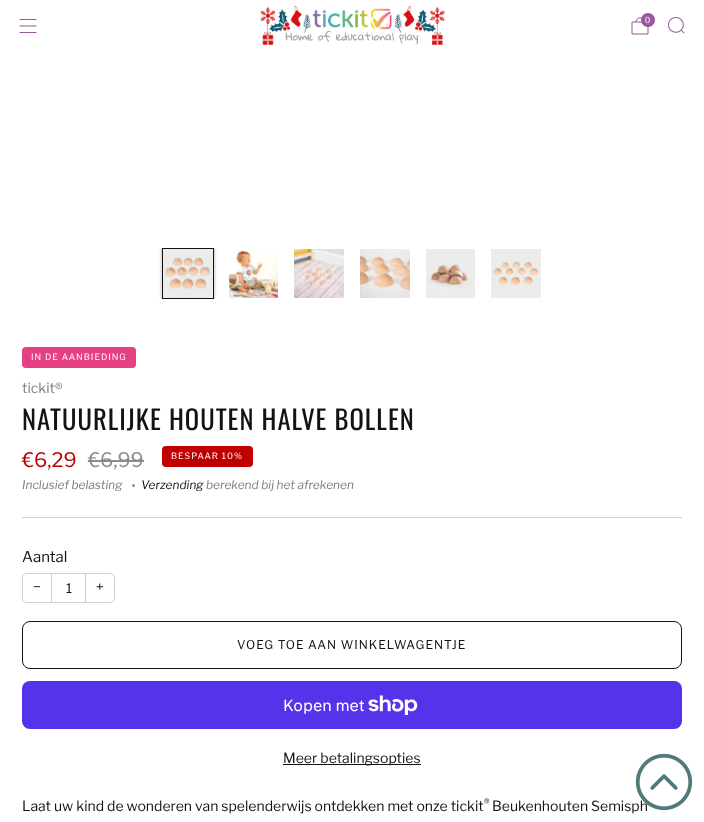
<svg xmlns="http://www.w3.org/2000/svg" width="704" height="822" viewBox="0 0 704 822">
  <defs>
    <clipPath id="clip1"><rect x="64" y="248" width="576" height="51"/></clipPath>
    <filter id="blur1" x="-50%" y="-200%" width="200%" height="500%"><feGaussianBlur stdDeviation="1.5"/></filter>
  </defs>
  <rect width="100%" height="100%" fill="#ffffff"/>
  <path d="M19.5 19.5H36.5M19.5 26H36.5M19.5 32.5H36.5" fill="none" stroke="#98579e"/>
  <image x="260" y="6" width="185" height="40" href="img1.png"/>
  <path d="M644 22C644 16.5 636 16.5 636 22M632 22H648V34H632Z" fill="none" stroke="#98579e"/>
  <circle cx="648" cy="20" r="7" fill="#98579e"/>
  <text x="645" y="23" font-family="Liberation Sans" font-size="9" fill="#ffffff">0</text>
  <image x="668" y="17" width="17" height="17" href="img2.png"/>
  <g clip-path="url(#clip1)">
    <rect x="161" y="247" width="54" height="53" fill="#131313" fill-opacity="0.2" filter="url(#blur1)"/>
  </g>
  <rect x="162.5" y="248.5" width="51" height="50" fill="none" stroke="#131313"/>
  <image x="163" y="249" width="50" height="49" href="img3.png"/>
  <image x="229" y="249" width="49" height="49" href="img4.png"/>
  <image x="294" y="249" width="50" height="49" href="img5.png"/>
  <image x="360" y="249" width="50" height="49" href="img6.png"/>
  <image x="426" y="249" width="49" height="49" href="img7.png"/>
  <image x="491" y="249" width="50" height="49" href="img8.png"/>
  <rect x="22" y="347" width="114" height="21" rx="4" fill="#e73f84"/>
  <text x="31" y="360" font-family="Libre Franklin" font-size="8.75" letter-spacing="1" fill="#ffffff">IN DE AANBIEDING</text>
  <text x="22" y="393" font-family="Libre Franklin" font-size="14" fill="#7d7d7d">tickit®</text>
  <text x="22" y="430" font-family="Oswald" font-size="26.6" letter-spacing="1" fill="#131313">NATUURLIJKE HOUTEN HALVE BOLLEN</text>
  <text x="22" y="467" font-family="Libre Franklin" font-size="20" fill="#c00000">€6,29</text>
  <text x="88" y="467" font-family="Libre Franklin" font-size="20" fill="#8b8b8b">€6,99</text>
  <rect x="88" y="460" width="56" height="2" fill="#8b8b8b"/>
  <rect x="162" y="446" width="91" height="21" rx="4" fill="#c00000"/>
  <text x="171" y="459" font-family="Libre Franklin" font-size="8.75" letter-spacing="1" fill="#ffffff">BESPAAR 10%</text>
  <text x="22" y="489" font-family="Libre Franklin" font-size="11.9" font-style="italic" fill="#7d7d7d">Inclusief belasting</text>
  <circle cx="133.5" cy="485.5" r="1.5" fill="#8b8b8b"/>
  <text x="141" y="489" font-family="Libre Franklin" font-size="11.9" font-style="italic" fill="#131313">Verzending</text>
  <text x="206" y="489" font-family="Libre Franklin" font-size="11.9" font-style="italic" fill="#7d7d7d">berekend bij het afrekenen</text>
  <rect x="22" y="517" width="660" height="1" fill="#d0d0d0"/>
  <text x="22" y="562" font-family="Libre Franklin" font-size="15" fill="#131313">Aantal</text>
  <rect x="22.5" y="573.5" width="92" height="29" rx="4.5" fill="none" stroke="#d0d0d0"/>
  <text x="33" y="591" font-family="Liberation Sans" font-size="13" fill="#131313">−</text>
  <rect x="85" y="574" width="1" height="28" fill="#d0d0d0"/>
  <rect x="51" y="574" width="1" height="28" fill="#d0d0d0"/>
  <text x="66" y="593" font-family="Libre Franklin" font-size="13" fill="#131313">1</text>
  <text x="96" y="591" font-family="Liberation Sans" font-size="13" fill="#131313">+</text>
  <rect x="22.5" y="621.5" width="659" height="47" rx="7.5" fill="none" stroke="#131313"/>
  <text x="237" y="649" font-family="Libre Franklin" font-size="12" letter-spacing="1" fill="#131313">VOEG TOE AAN WINKELWAGENTJE</text>
  <rect x="22" y="681" width="660" height="48" rx="8" fill="#5433eb"/>
  <text x="283" y="711" font-family="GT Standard" font-size="16" fill="#ffffff">Kopen met</text>
  <image x="368" y="695" width="50" height="20" href="img9.png"/>
  <rect x="283" y="764" width="138" height="1" fill="#131313"/>
  <text x="283" y="763" font-family="Libre Franklin" font-size="14" fill="#131313">Meer betalingsopties</text>
  <text x="22" y="811" font-family="Libre Franklin" font-size="14" fill="#131313">Laat uw kind de wonderen van spelenderwijs ontdekken met onze tickit</text>
  <text x="484" y="806" font-family="Libre Franklin" font-size="10" fill="#131313">®</text>
  <text x="492" y="811" font-family="Libre Franklin" font-size="14" fill="#131313">Beukenhouten Semisph</text>
  <image x="635" y="753" width="58" height="58" href="img10.png"/>
</svg>
